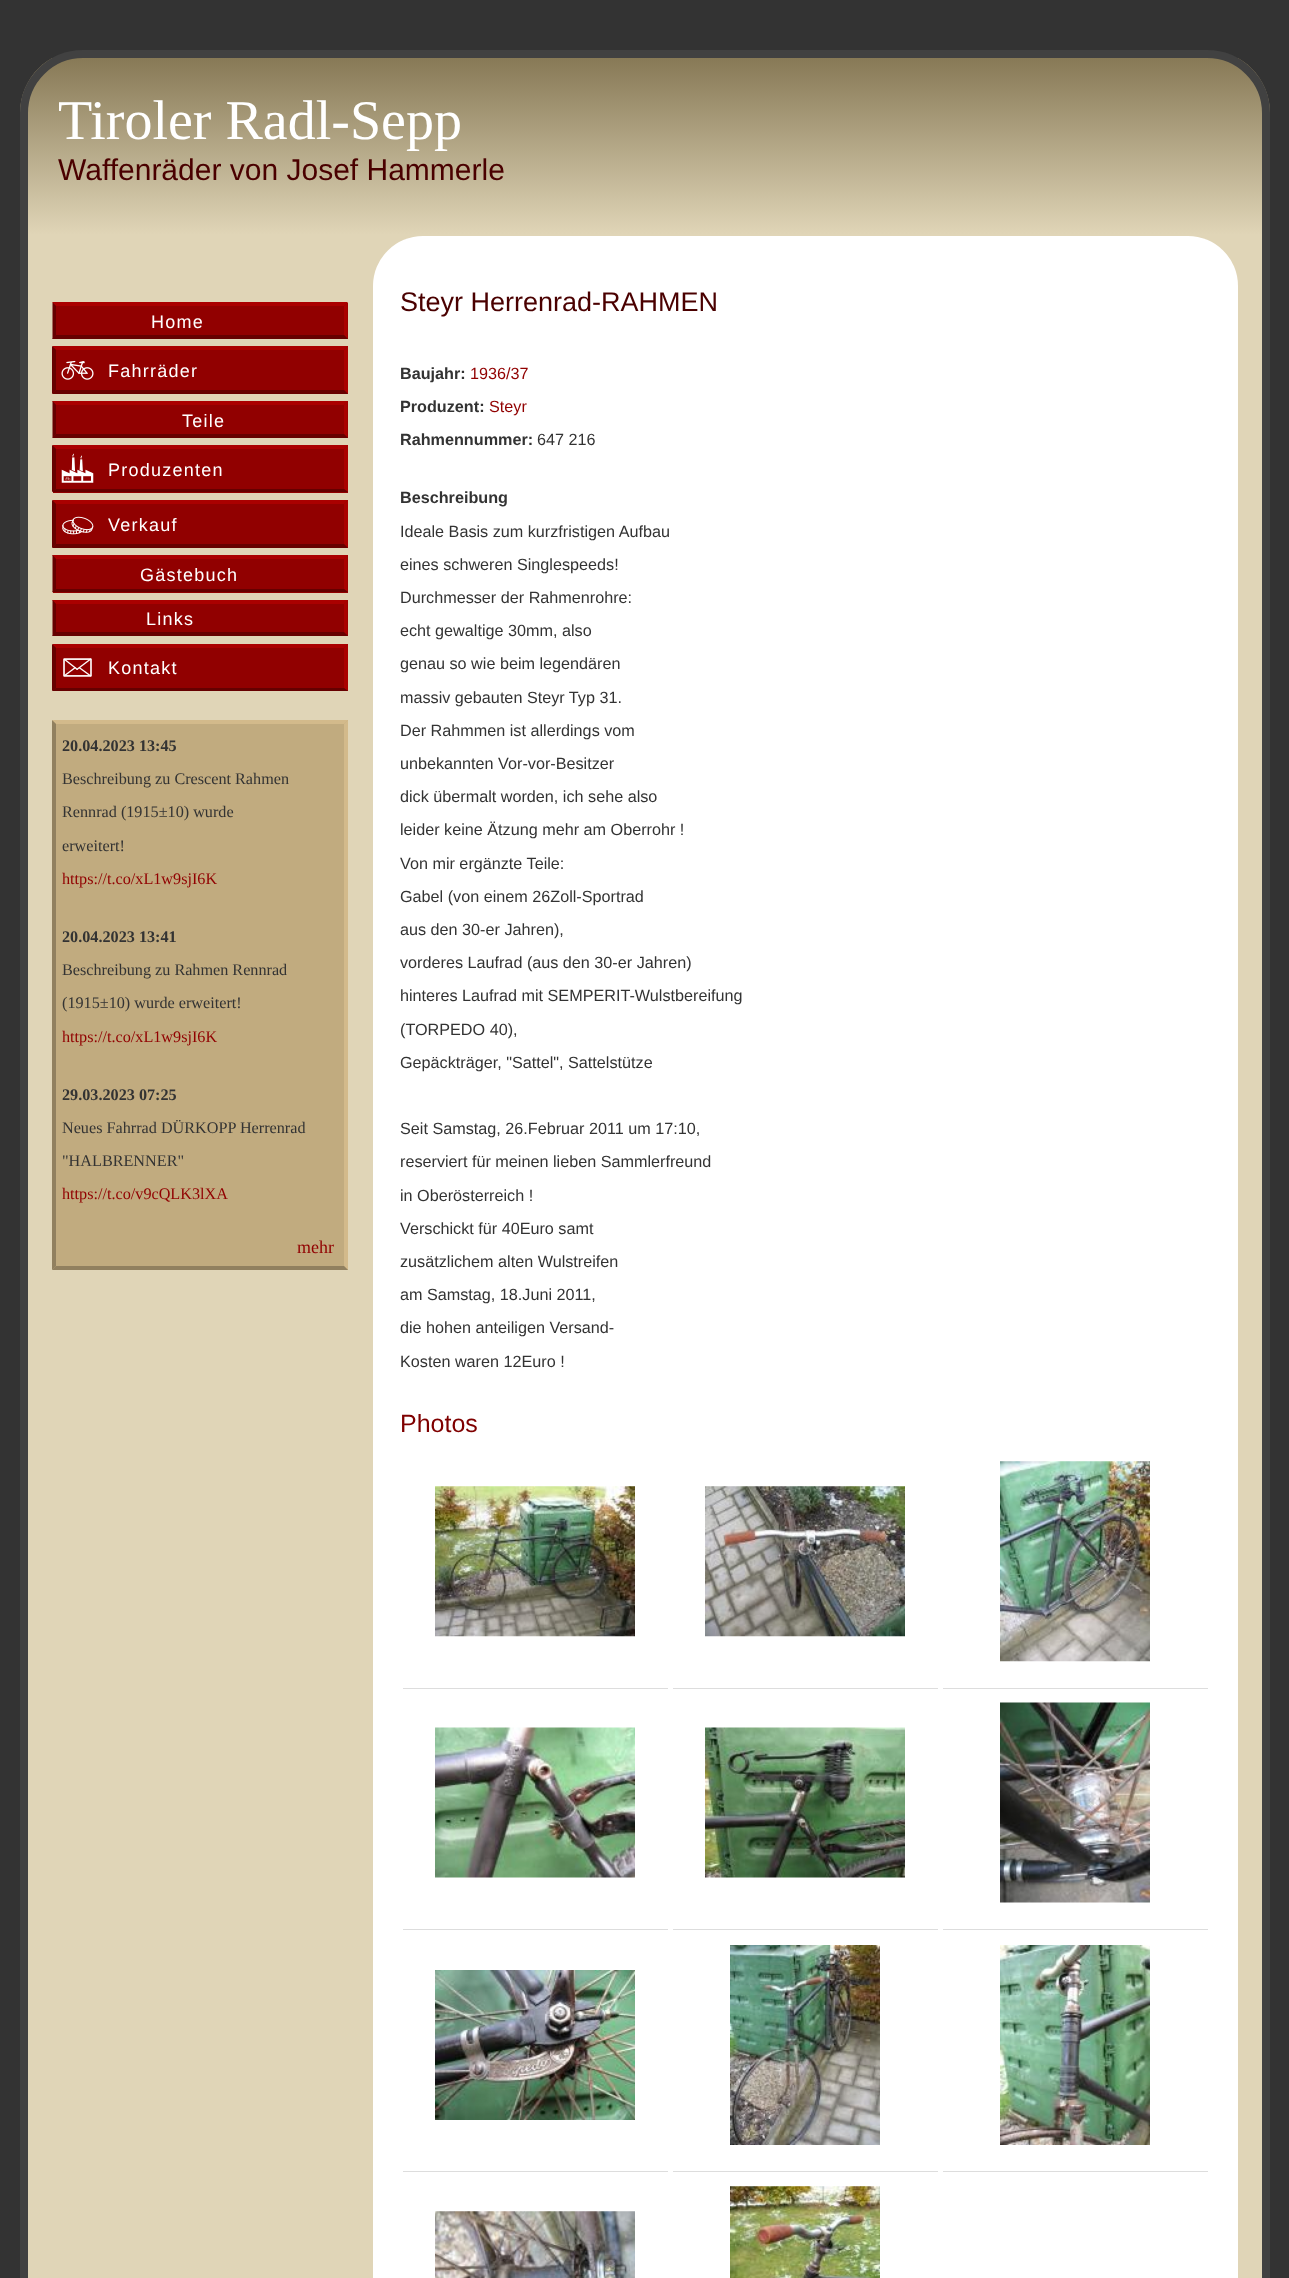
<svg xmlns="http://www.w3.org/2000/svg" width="1289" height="2278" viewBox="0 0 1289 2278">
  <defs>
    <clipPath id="clip1"><path d="M83 50H1207C1242 50 1270 78 1270 113V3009H20V113C20 78 48 50 83 50Z"/></clipPath>
    <linearGradient id="g1" gradientUnits="userSpaceOnUse" x1="645" y1="58" x2="645" y2="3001"><stop offset="0" stop-color="#877956"/><stop offset="0.06" stop-color="#e0d5b7"/><stop offset="1" stop-color="#e0d5b7"/></linearGradient>
  </defs>
  <rect width="100%" height="100%" fill="#333333"/>
  <g clip-path="url(#clip1)">
    <rect x="20" y="58" width="1250" height="2220" fill="url(#g1)"/>
  </g>
  <path d="M83 54H1207C1239.5 54 1266 80.5 1266 113V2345H24V113C24 80.5 50.5 54 83 54Z" fill="none" stroke="#414141" stroke-width="8"/>
  <text x="58" y="139" font-family="Liberation Serif" font-size="56" fill="#ffffff">Tiroler Radl-Sepp</text>
  <text x="58" y="180" font-family="Liberation Sans" font-size="30" fill="#4a0000">Waffenräder von Josef Hammerle</text>
  <rect x="53" y="303" width="295" height="36" fill="#910000"/>
  <path d="M52 302H348L344 306H56Z" fill="#aa0000"/>
  <path d="M347.5 302.5V339L344 335V306Z" fill="#aa0000"/>
  <path d="M348 339H52L56 335H344Z" fill="#660000"/>
  <path d="M52.5 339V302.5L56 306V335Z" fill="#660000"/>
  <text x="151" y="328" font-family="Liberation Sans" font-size="18" letter-spacing="1.25" fill="#ffffff">Home</text>
  <rect x="53" y="346" width="295" height="48" fill="#910000"/>
  <path d="M52 346H348L344 350H56Z" fill="#aa0000"/>
  <path d="M348 346V394L344 390V350Z" fill="#aa0000"/>
  <path d="M348 394H52L56 390H344Z" fill="#660000"/>
  <path d="M52 394V346L56 350V390Z" fill="#660000"/>
  <image x="61" y="360" width="33" height="20" href="img1.png"/>
  <text x="108" y="377" font-family="Liberation Sans" font-size="18" letter-spacing="1.25" fill="#ffffff">Fahrräder</text>
  <rect x="53" y="401" width="295" height="37" fill="#910000"/>
  <path d="M52 401H348L344 405H56Z" fill="#aa0000"/>
  <path d="M347.5 401V437.5L344 434V405Z" fill="#aa0000"/>
  <path d="M348 438H52L56 434H344Z" fill="#660000"/>
  <path d="M52.5 437.5V401L56 405V434Z" fill="#660000"/>
  <text x="182" y="427" font-family="Liberation Sans" font-size="18" letter-spacing="1.25" fill="#ffffff">Teile</text>
  <rect x="53" y="445" width="295" height="48" fill="#910000"/>
  <path d="M52 445H348L344 449H56Z" fill="#aa0000"/>
  <path d="M348 445V492L344 489V449Z" fill="#aa0000"/>
  <path d="M348 492H52L56 489H344Z" fill="#660000"/>
  <path d="M52 492V445L56 449V489Z" fill="#660000"/>
  <image x="61" y="453" width="33" height="30" href="img2.png"/>
  <text x="108" y="476" font-family="Liberation Sans" font-size="18" letter-spacing="1.25" fill="#ffffff">Produzenten</text>
  <rect x="53" y="500" width="295" height="48" fill="#910000"/>
  <path d="M52 500H348L344 504H56Z" fill="#aa0000"/>
  <path d="M348 500V548L344 544V504Z" fill="#aa0000"/>
  <path d="M348 548H52L56 544H344Z" fill="#660000"/>
  <path d="M52 548V500L56 504V544Z" fill="#660000"/>
  <image x="62" y="516" width="32" height="19" href="img3.png"/>
  <text x="108" y="531" font-family="Liberation Sans" font-size="18" letter-spacing="1.25" fill="#ffffff">Verkauf</text>
  <rect x="53" y="555" width="295" height="38" fill="#910000"/>
  <path d="M52 555H348L344 559H56Z" fill="#aa0000"/>
  <path d="M347.5 555V592.5L344 589V559Z" fill="#aa0000"/>
  <path d="M348 592H52L56 589H344Z" fill="#660000"/>
  <path d="M52.5 592.5V555L56 559V589Z" fill="#660000"/>
  <text x="140" y="581" font-family="Liberation Sans" font-size="18" letter-spacing="1.25" fill="#ffffff">Gästebuch</text>
  <rect x="53" y="600" width="295" height="36" fill="#910000"/>
  <path d="M52 600H348L344 604H56Z" fill="#aa0000"/>
  <path d="M347.5 600V636L344 632.5V604Z" fill="#aa0000"/>
  <path d="M348 636H52L56 632H344Z" fill="#660000"/>
  <path d="M52.5 636V600L56 604V632.5Z" fill="#660000"/>
  <text x="146" y="625" font-family="Liberation Sans" font-size="18" letter-spacing="1.25" fill="#ffffff">Links</text>
  <rect x="53" y="644" width="295" height="47" fill="#910000"/>
  <path d="M52 644H348L344 648H56Z" fill="#aa0000"/>
  <path d="M348 644V691L344 688V648Z" fill="#aa0000"/>
  <path d="M348 691H52L56 688H344Z" fill="#660000"/>
  <path d="M52 691V644L56 648V688Z" fill="#660000"/>
  <image x="63" y="658" width="29" height="19" href="img4.png"/>
  <text x="108" y="674" font-family="Liberation Sans" font-size="18" letter-spacing="1.25" fill="#ffffff">Kontakt</text>
  <rect x="53" y="720" width="295" height="550" fill="#c1ab7f"/>
  <path d="M52 720H348L344 724H56Z" fill="#d3ba8b"/>
  <path d="M348 720V1270L344 1266V724Z" fill="#d3ba8b"/>
  <path d="M348 1270H52L56 1266H344Z" fill="#91805f"/>
  <path d="M52 1270V720L56 724V1266Z" fill="#91805f"/>
  <text x="62" y="751" font-family="Liberation Serif" font-size="16.2" font-weight="bold" fill="#333333">20.04.2023 13:45</text>
  <text x="62" y="784" font-family="Liberation Serif" font-size="16.2" fill="#333333">Beschreibung zu Crescent Rahmen</text>
  <text x="62" y="817" font-family="Liberation Serif" font-size="16.2" fill="#333333">Rennrad (1915±10) wurde</text>
  <text x="62" y="851" font-family="Liberation Serif" font-size="16.2" fill="#333333">erweitert!</text>
  <text x="62" y="884" font-family="Liberation Serif" font-size="16.2" fill="#910000">https://t.co/xL1w9sjI6K</text>
  <text x="62" y="942" font-family="Liberation Serif" font-size="16.2" font-weight="bold" fill="#333333">20.04.2023 13:41</text>
  <text x="62" y="975" font-family="Liberation Serif" font-size="16.2" fill="#333333">Beschreibung zu Rahmen Rennrad</text>
  <text x="62" y="1008" font-family="Liberation Serif" font-size="16.2" fill="#333333">(1915±10) wurde erweitert!</text>
  <text x="62" y="1042" font-family="Liberation Serif" font-size="16.2" fill="#910000">https://t.co/xL1w9sjI6K</text>
  <text x="62" y="1100" font-family="Liberation Serif" font-size="16.2" font-weight="bold" fill="#333333">29.03.2023 07:25</text>
  <text x="62" y="1133" font-family="Liberation Serif" font-size="16.2" fill="#333333">Neues Fahrrad DÜRKOPP Herrenrad</text>
  <text x="62" y="1166" font-family="Liberation Serif" font-size="16.2" fill="#333333">"HALBRENNER"</text>
  <text x="62" y="1199" font-family="Liberation Serif" font-size="16.2" fill="#910000">https://t.co/v9cQLK3lXA</text>
  <text x="297" y="1253" font-family="Liberation Serif" font-size="18" fill="#910000">mehr</text>
  <rect x="373" y="236" width="865" height="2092" rx="50" fill="#ffffff"/>
  <text x="400" y="311" font-family="Liberation Sans" font-size="27" fill="#4a0000">Steyr Herrenrad-RAHMEN</text>
  <text x="400" y="379" font-family="Liberation Sans" font-size="16.2" font-weight="bold" fill="#333333">Baujahr:</text>
  <text x="470" y="379" font-family="Liberation Sans" font-size="16.2" fill="#910000">1936/37</text>
  <text x="400" y="412" font-family="Liberation Sans" font-size="16.2" font-weight="bold" fill="#333333">Produzent:</text>
  <text x="489" y="412" font-family="Liberation Sans" font-size="16.2" fill="#910000">Steyr</text>
  <text x="400" y="445" font-family="Liberation Sans" font-size="16.2" font-weight="bold" fill="#333333">Rahmennummer:</text>
  <text x="537" y="445" font-family="Liberation Sans" font-size="16.2" fill="#333333">647 216</text>
  <text x="400" y="503" font-family="Liberation Sans" font-size="16.2" font-weight="bold" fill="#333333">Beschreibung</text>
  <text x="400" y="537" font-family="Liberation Sans" font-size="16.2" fill="#333333">Ideale Basis zum kurzfristigen Aufbau</text>
  <text x="400" y="570" font-family="Liberation Sans" font-size="16.2" fill="#333333">eines schweren Singlespeeds!</text>
  <text x="400" y="603" font-family="Liberation Sans" font-size="16.2" fill="#333333">Durchmesser der Rahmenrohre:</text>
  <text x="400" y="636" font-family="Liberation Sans" font-size="16.2" fill="#333333">echt gewaltige 30mm, also</text>
  <text x="400" y="669" font-family="Liberation Sans" font-size="16.2" fill="#333333">genau so wie beim legendären</text>
  <text x="400" y="703" font-family="Liberation Sans" font-size="16.2" fill="#333333">massiv gebauten Steyr Typ 31.</text>
  <text x="400" y="736" font-family="Liberation Sans" font-size="16.2" fill="#333333">Der Rahmmen ist allerdings vom</text>
  <text x="400" y="769" font-family="Liberation Sans" font-size="16.2" fill="#333333">unbekannten Vor-vor-Besitzer</text>
  <text x="400" y="802" font-family="Liberation Sans" font-size="16.2" fill="#333333">dick übermalt worden, ich sehe also</text>
  <text x="400" y="835" font-family="Liberation Sans" font-size="16.2" fill="#333333">leider keine Ätzung mehr am Oberrohr !</text>
  <text x="400" y="869" font-family="Liberation Sans" font-size="16.2" fill="#333333">Von mir ergänzte Teile:</text>
  <text x="400" y="902" font-family="Liberation Sans" font-size="16.2" fill="#333333">Gabel (von einem 26Zoll-Sportrad</text>
  <text x="400" y="935" font-family="Liberation Sans" font-size="16.2" fill="#333333">aus den 30-er Jahren),</text>
  <text x="400" y="968" font-family="Liberation Sans" font-size="16.2" fill="#333333">vorderes Laufrad (aus den 30-er Jahren)</text>
  <text x="400" y="1001" font-family="Liberation Sans" font-size="16.2" fill="#333333">hinteres Laufrad mit SEMPERIT-Wulstbereifung</text>
  <text x="400" y="1035" font-family="Liberation Sans" font-size="16.2" fill="#333333">(TORPEDO 40),</text>
  <text x="400" y="1068" font-family="Liberation Sans" font-size="16.2" fill="#333333">Gepäckträger, "Sattel", Sattelstütze</text>
  <text x="400" y="1134" font-family="Liberation Sans" font-size="16.2" fill="#333333">Seit Samstag, 26.Februar 2011 um 17:10,</text>
  <text x="400" y="1167" font-family="Liberation Sans" font-size="16.2" fill="#333333">reserviert für meinen lieben Sammlerfreund</text>
  <text x="400" y="1201" font-family="Liberation Sans" font-size="16.2" fill="#333333">in Oberösterreich !</text>
  <text x="400" y="1234" font-family="Liberation Sans" font-size="16.2" fill="#333333">Verschickt für 40Euro samt</text>
  <text x="400" y="1267" font-family="Liberation Sans" font-size="16.2" fill="#333333">zusätzlichem alten Wulstreifen</text>
  <text x="400" y="1300" font-family="Liberation Sans" font-size="16.2" fill="#333333">am Samstag, 18.Juni 2011,</text>
  <text x="400" y="1333" font-family="Liberation Sans" font-size="16.2" fill="#333333">die hohen anteiligen Versand-</text>
  <text x="400" y="1367" font-family="Liberation Sans" font-size="16.2" fill="#333333">Kosten waren 12Euro !</text>
  <text x="400" y="1432" font-family="Liberation Sans" font-size="25" fill="#7f0000">Photos</text>
  <rect x="403" y="1688" width="265" height="1" fill="#dddddd"/>
  <image x="435" y="1486" width="200" height="151" href="img5.png"/>
  <rect x="673" y="1688" width="265" height="1" fill="#dddddd"/>
  <image x="705" y="1486" width="200" height="151" href="img6.png"/>
  <rect x="943" y="1688" width="265" height="1" fill="#dddddd"/>
  <image x="1000" y="1461" width="150" height="201" href="img7.png"/>
  <rect x="403" y="1929" width="265" height="1" fill="#dddddd"/>
  <image x="435" y="1727" width="200" height="151" href="img8.png"/>
  <rect x="673" y="1929" width="265" height="1" fill="#dddddd"/>
  <image x="705" y="1727" width="200" height="151" href="img9.png"/>
  <rect x="943" y="1929" width="265" height="1" fill="#dddddd"/>
  <image x="1000" y="1702" width="150" height="201" href="img10.png"/>
  <rect x="403" y="2171" width="265" height="1" fill="#dddddd"/>
  <image x="435" y="1970" width="200" height="150" href="img11.png"/>
  <rect x="673" y="2171" width="265" height="1" fill="#dddddd"/>
  <image x="730" y="1945" width="150" height="200" href="img12.png"/>
  <rect x="943" y="2171" width="265" height="1" fill="#dddddd"/>
  <image x="1000" y="1945" width="150" height="200" href="img13.png"/>
  <image x="435" y="2211" width="200" height="67" href="img14.png"/>
  <image x="730" y="2186" width="150" height="92" href="img15.png"/>
</svg>
